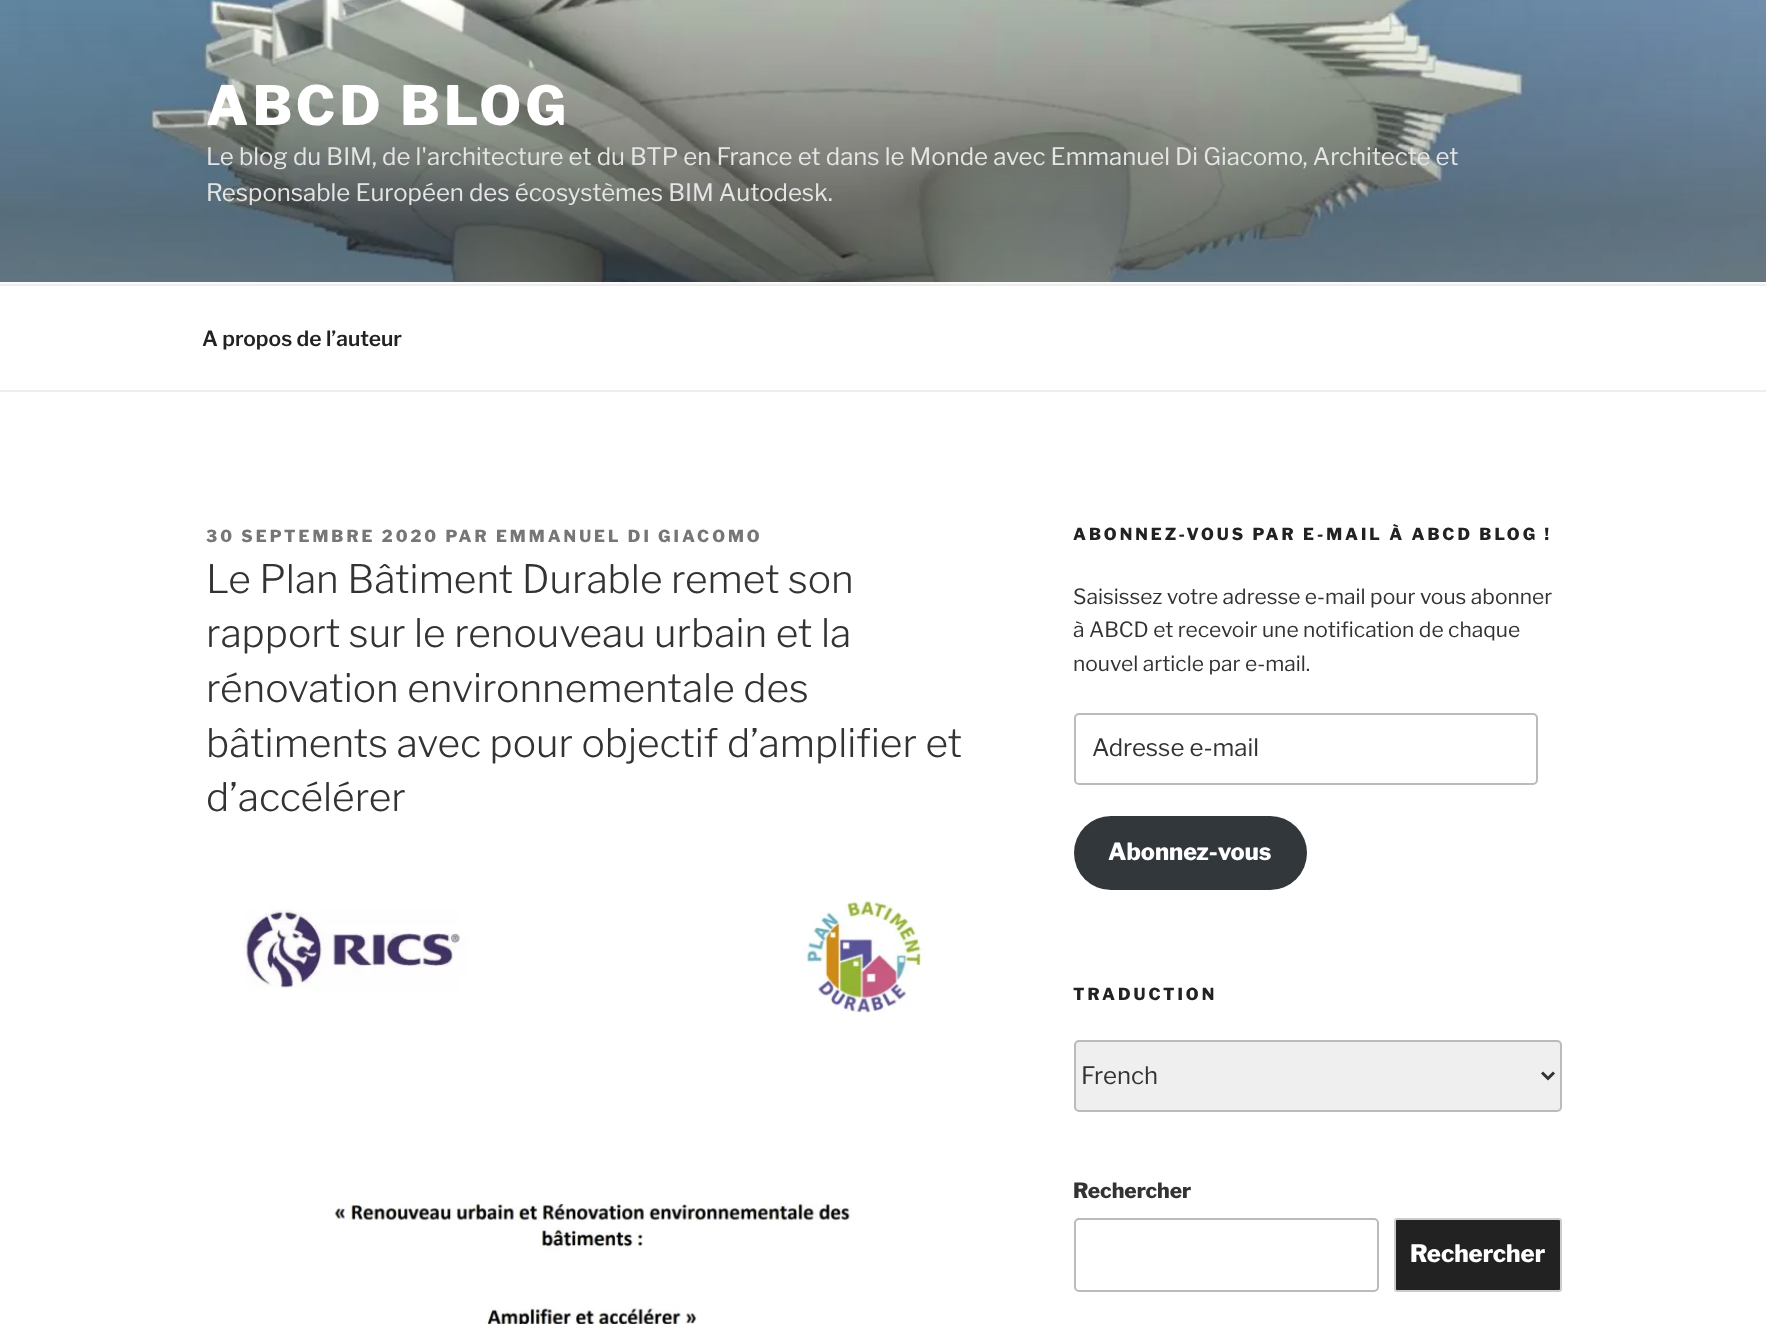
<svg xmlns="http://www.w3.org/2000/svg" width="1766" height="1324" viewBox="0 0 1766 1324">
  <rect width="100%" height="100%" fill="#ffffff"/>
  <rect x="0" y="282" width="1766" height="2" fill="#fafafa"/>
  <image x="0" y="0" width="1766" height="282" href="img1.png"/>
  <text x="206" y="125" font-family="Libre Franklin" font-size="54" font-weight="100" letter-spacing="4.25" fill="#ffffff">ABCD BLOG</text>
  <text x="206" y="165" font-family="'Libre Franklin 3'" font-size="24" font-weight="100" fill="#e4e5e4">Le blog du BIM, de l'architecture et du BTP en France et dans le Monde avec Emmanuel Di Giacomo, Architecte et</text>
  <text x="206" y="201" font-family="'Libre Franklin 3'" font-size="24" font-weight="100" fill="#e4e5e4">Responsable Européen des écosystèmes BIM Autodesk.</text>
  <rect x="0" y="284" width="1766" height="2" fill="#eeeeee"/>
  <rect x="0" y="390" width="1766" height="2" fill="#eeeeee"/>
  <text x="202" y="346" font-family="'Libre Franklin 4'" font-size="21" font-weight="100" fill="#222222">A propos de l’auteur</text>
  <text x="206" y="542" font-family="Libre Franklin" font-size="16.5" font-weight="100" letter-spacing="3" fill="#767676">30 SEPTEMBRE 2020 PAR EMMANUEL DI GIACOMO</text>
  <text x="206" y="593" font-family="'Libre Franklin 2'" font-size="39" font-weight="100" fill="#333333">Le Plan Bâtiment Durable remet son</text>
  <text x="206" y="647" font-family="'Libre Franklin 2'" font-size="39" font-weight="100" fill="#333333">rapport sur le renouveau urbain et la</text>
  <text x="206" y="702" font-family="'Libre Franklin 2'" font-size="39" font-weight="100" fill="#333333">rénovation environnementale des</text>
  <text x="206" y="757" font-family="'Libre Franklin 2'" font-size="39" font-weight="100" fill="#333333">bâtiments avec pour objectif d’amplifier et</text>
  <text x="206" y="811" font-family="'Libre Franklin 2'" font-size="39" font-weight="100" fill="#333333">d’accélérer</text>
  <image x="243" y="900" width="683" height="424" href="img2.png"/>
  <text x="1073" y="540" font-family="Libre Franklin" font-size="16.5" font-weight="100" letter-spacing="3" fill="#222222">ABONNEZ-VOUS PAR E-MAIL À ABCD BLOG !</text>
  <text x="1073" y="604" font-family="'Libre Franklin 3'" font-size="21" font-weight="100" fill="#333333">Saisissez votre adresse e-mail pour vous abonner</text>
  <text x="1073" y="637" font-family="'Libre Franklin 3'" font-size="21" font-weight="100" fill="#333333">à ABCD et recevoir une notification de chaque</text>
  <text x="1073" y="671" font-family="'Libre Franklin 3'" font-size="21" font-weight="100" fill="#333333">nouvel article par e-mail.</text>
  <rect x="1075" y="714" width="462" height="70" rx="4" fill="none" stroke="#bbbbbb" stroke-width="2"/>
  <text x="1092" y="756" font-family="'Libre Franklin 3'" font-size="24" font-weight="100" fill="#333333">Adresse e-mail</text>
  <rect x="1074" y="816" width="233" height="74" rx="37" fill="#32373c"/>
  <text x="1108" y="860" font-family="Libre Franklin" font-size="23.5" font-weight="100" fill="#ffffff">Abonnez-vous</text>
  <text x="1073" y="1000" font-family="Libre Franklin" font-size="16.5" font-weight="100" letter-spacing="3" fill="#222222">TRADUCTION</text>
  <rect x="1075" y="1041" width="486" height="70" rx="4" fill="#efefef" stroke="#bbbbbb" stroke-width="2"/>
  <path d="M1542 1072.5L1548 1078.5L1554 1072.5" fill="none" stroke="#333333" stroke-width="3"/>
  <text x="1081" y="1084" font-family="'Libre Franklin 3'" font-size="24" font-weight="100" fill="#333333">French</text>
  <text x="1073" y="1198" font-family="Libre Franklin" font-size="21" font-weight="100" fill="#333333">Rechercher</text>
  <rect x="1075" y="1219" width="303" height="72" rx="4" fill="none" stroke="#bbbbbb" stroke-width="2"/>
  <rect x="1395" y="1219" width="166" height="72" rx="2" fill="#222222" stroke="#cccccc" stroke-width="2"/>
  <text x="1410" y="1262" font-family="Libre Franklin" font-size="24" font-weight="100" fill="#ffffff">Rechercher</text>
</svg>
